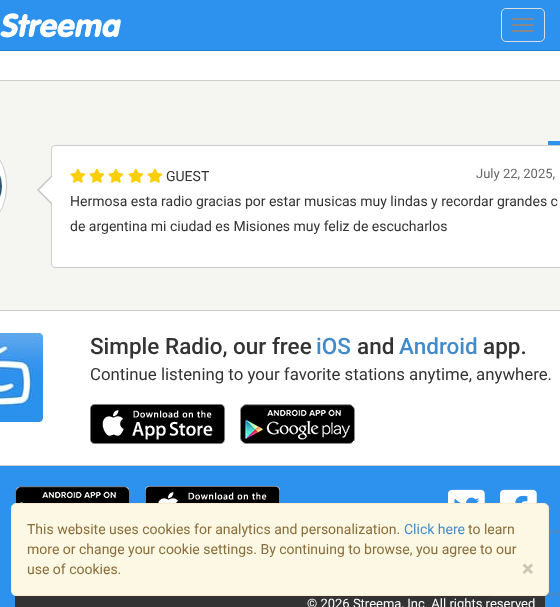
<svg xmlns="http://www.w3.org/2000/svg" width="560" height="607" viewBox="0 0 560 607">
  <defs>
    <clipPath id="clip1"><path d="M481 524H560V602H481ZM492 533H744C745 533 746 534 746 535V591C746 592 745 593 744 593H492C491 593 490 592 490 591V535C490 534 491 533 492 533Z" clip-rule="evenodd"/></clipPath>
    <filter id="blur1" x="-50%" y="-200%" width="200%" height="500%"><feGaussianBlur stdDeviation="2.5"/></filter>
  </defs>
  <rect width="100%" height="100%" fill="#f5f5f1"/>
  <rect x="0" y="51" width="560" height="29" fill="#ffffff"/>
  <rect x="-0.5" y="-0.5" width="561" height="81" fill="none" stroke="#cccccc"/>
  <rect x="0" y="0" width="560" height="50" fill="#2d91ee"/>
  <rect x="0" y="50" width="560" height="1" fill="#277dcd"/>
  <image x="0" y="13" width="121" height="25" href="img1.png"/>
  <rect x="501.5" y="8.5" width="43" height="33" rx="4.5" fill="none" stroke="#dddddd"/>
  <rect x="512" y="18" width="22" height="2" rx="1" fill="#888888"/>
  <rect x="512" y="24" width="22" height="2" rx="1" fill="#888888"/>
  <rect x="512" y="30" width="22" height="2" rx="1" fill="#888888"/>
  <rect x="0" y="466" width="560" height="141" fill="#2d91ee"/>
  <rect x="15" y="595" width="530" height="12" fill="#333333"/>
  <g clip-path="url(#clip1)">
    <rect x="490" y="533" width="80" height="60" rx="2" fill="#808080" filter="url(#blur1)"/>
  </g>
  <rect x="548" y="141" width="12" height="4" fill="#2d91ee"/>
  <rect x="-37.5" y="149.5" width="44" height="73" rx="36.5" fill="#ffffff" stroke="#cccccc"/>
  <image x="0" y="175" width="2" height="22" href="img2.png"/>
  <rect x="51.5" y="145.5" width="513" height="122" rx="3.5" fill="#ffffff" stroke="#cccccc"/>
  <path d="M51 176V204L37 190Z" fill="#c4c4c1"/>
  <image x="70" y="168" width="16" height="15" href="img3.png"/>
  <image x="89" y="168" width="16" height="15" href="img3.png"/>
  <image x="108" y="168" width="16" height="15" href="img3.png"/>
  <image x="128" y="168" width="16" height="15" href="img3.png"/>
  <image x="147" y="168" width="16" height="15" href="img3.png"/>
  <text x="166" y="181" font-family="Roboto" font-size="14" fill="#333333">GUEST</text>
  <text x="476" y="178" font-family="Roboto" font-size="13" fill="#666666">July 22, 2025,</text>
  <path d="M52 177V203L39 190Z" fill="#ffffff"/>
  <text x="70" y="206" font-family="Roboto" font-size="14" fill="#333333">Hermosa esta radio gracias por estar musicas muy lindas y recordar grandes c</text>
  <text x="70" y="231" font-family="Roboto" font-size="14" fill="#333333">de argentina mi ciudad es Misiones muy feliz de escucharlos</text>
  <rect x="-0.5" y="310.5" width="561" height="155" fill="#ffffff" stroke="#cccccc"/>
  <image x="0" y="333" width="43" height="89" href="img4.png"/>
  <text x="90" y="354" font-family="Roboto" font-size="22.5" font-weight="500" fill="#333333">Simple Radio, our free</text>
  <text x="316" y="354" font-family="Roboto" font-size="22.5" font-weight="500" fill="#428bca">iOS</text>
  <text x="357" y="354" font-family="Roboto" font-size="22.5" font-weight="500" fill="#333333">and</text>
  <text x="399" y="354" font-family="Roboto" font-size="22.5" font-weight="500" fill="#428bca">Android</text>
  <text x="483" y="354" font-family="Roboto" font-size="22.5" font-weight="500" fill="#333333">app.</text>
  <text x="90" y="380" font-family="Roboto" font-size="16.8" fill="#333333">Continue listening to your favorite stations anytime, anywhere.</text>
  <image x="90" y="404" width="135" height="40" href="img5.png"/>
  <image x="240" y="404" width="115" height="40" href="img6.png"/>
  <image x="15" y="486" width="115" height="18" href="img7.png"/>
  <rect x="11.5" y="503.5" width="537" height="92" rx="4.5" fill="#fcf8e3" stroke="#faebcc"/>
  <text x="27" y="534" font-family="Roboto" font-size="14" fill="#8a6d3b">This website uses cookies for analytics and personalization.</text>
  <text x="404" y="534" font-family="Roboto" font-size="14" fill="#428bca">Click here</text>
  <text x="468" y="534" font-family="Roboto" font-size="14" fill="#8a6d3b">to learn</text>
  <text x="27" y="554" font-family="Roboto" font-size="14" fill="#8a6d3b">more or change your cookie settings. By continuing to browse, you agree to our</text>
  <text x="27" y="574" font-family="Roboto" font-size="14" fill="#8a6d3b">use of cookies.</text>
  <text x="522" y="576" font-family="Roboto" font-size="21" font-weight="bold" fill="#cac6b6">×</text>
  <image x="145" y="486" width="135" height="17" href="img8.png"/>
  <image x="448" y="489" width="37" height="14" href="img9.png"/>
  <image x="500" y="489" width="37" height="14" href="img10.png"/>
  <text x="307" y="608" font-family="Roboto" font-size="13" fill="#ffffff">© 2026 Streema, Inc. All rights reserved</text>
</svg>
